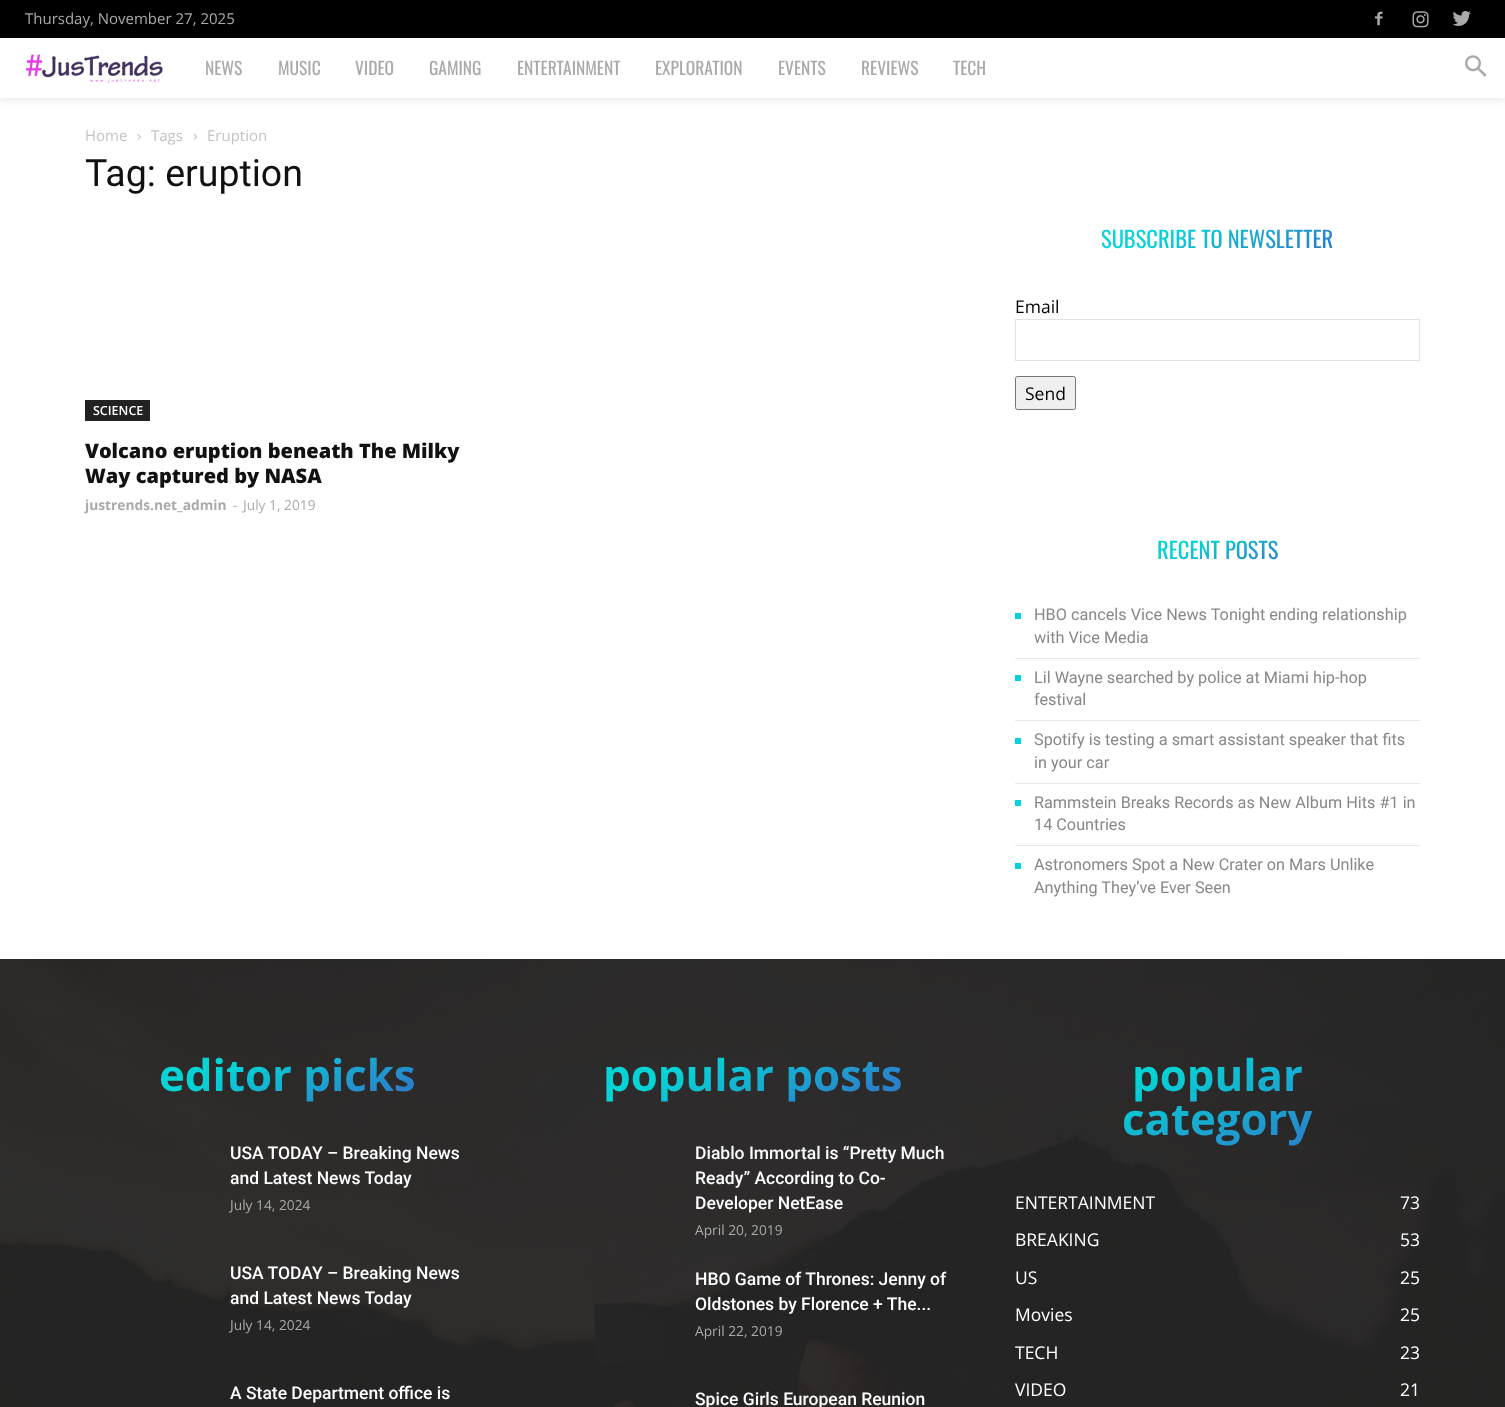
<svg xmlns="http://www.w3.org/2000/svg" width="1505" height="1407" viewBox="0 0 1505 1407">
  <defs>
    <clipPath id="clip1"><path d="M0 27H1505V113H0ZM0 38H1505V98H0Z" clip-rule="evenodd"/></clipPath>
    <filter id="blur1" x="-50%" y="-200%" width="200%" height="500%"><feGaussianBlur stdDeviation="4"/></filter>
    <linearGradient id="g1" gradientUnits="userSpaceOnUse" x1="1188" y1="177" x2="1247" y2="311"><stop offset="0.3" stop-color="#06d3d5"/><stop offset="0.8" stop-color="#2a81cb"/></linearGradient>
    <linearGradient id="g2" gradientUnits="userSpaceOnUse" x1="1197" y1="509" x2="1238" y2="601"><stop offset="0.3" stop-color="#06d3d5"/><stop offset="0.8" stop-color="#2a81cb"/></linearGradient>
    <linearGradient id="g3" gradientUnits="userSpaceOnUse" x1="252" y1="1000" x2="323" y2="1161"><stop offset="0.3" stop-color="#06d3d5"/><stop offset="0.8" stop-color="#2a81cb"/></linearGradient>
    <linearGradient id="g4" gradientUnits="userSpaceOnUse" x1="713" y1="992" x2="792" y2="1169"><stop offset="0.3" stop-color="#06d3d5"/><stop offset="0.8" stop-color="#2a81cb"/></linearGradient>
    <linearGradient id="g5" gradientUnits="userSpaceOnUse" x1="1165" y1="986" x2="1270" y2="1219"><stop offset="0.3" stop-color="#06d3d5"/><stop offset="0.8" stop-color="#2a81cb"/></linearGradient>
  </defs>
  <rect width="100%" height="100%" fill="#ffffff"/>
  <g clip-path="url(#clip1)">
    <rect x="0" y="40" width="1505" height="60" fill="#000000" fill-opacity="0.09" filter="url(#blur1)"/>
  </g>
  <rect x="0" y="0" width="1505" height="38" fill="#000000"/>
  <text x="25" y="24" font-family="Open Sans" font-size="15" fill="#aaaaaa">Thursday, November 27, 2025</text>
  <image x="1375" y="11" width="8" height="15" href="img1.png"/>
  <image x="1412" y="11" width="17" height="17" href="img2.png"/>
  <image x="1452" y="10" width="19" height="16" href="img3.png"/>
  <image x="25" y="54" width="138" height="29" href="img4.png"/>
  <text x="205" y="75" font-family="Oswald" font-size="17.5" fill="#aaaaaa">NEWS</text>
  <text x="278" y="75" font-family="Oswald" font-size="17.5" fill="#aaaaaa">MUSIC</text>
  <text x="355" y="75" font-family="Oswald" font-size="17.5" fill="#aaaaaa">VIDEO</text>
  <text x="429" y="75" font-family="Oswald" font-size="17.5" fill="#aaaaaa">GAMING</text>
  <text x="517" y="75" font-family="Oswald" font-size="17.5" fill="#aaaaaa">ENTERTAINMENT</text>
  <text x="655" y="75" font-family="Oswald" font-size="17.5" fill="#aaaaaa">EXPLORATION</text>
  <text x="778" y="75" font-family="Oswald" font-size="17.5" fill="#aaaaaa">EVENTS</text>
  <text x="861" y="75" font-family="Oswald" font-size="17.5" fill="#aaaaaa">REVIEWS</text>
  <text x="953" y="75" font-family="Oswald" font-size="17.5" fill="#aaaaaa">TECH</text>
  <image x="1465" y="55" width="22" height="22" href="img5.png"/>
  <text x="85" y="141" font-family="Open Sans" font-size="15" fill="#c3c3c3">Home</text>
  <image x="137" y="134" width="4" height="6" href="img6.png"/>
  <text x="151" y="141" font-family="Open Sans" font-size="15" fill="#c3c3c3">Tags</text>
  <image x="193" y="134" width="4" height="6" href="img7.png"/>
  <text x="207" y="141" font-family="Open Sans" font-size="15" fill="#c3c3c3">Eruption</text>
  <text x="85" y="186" font-family="Roboto" font-size="37.5" fill="#111111">Tag: eruption</text>
  <rect x="85" y="400" width="65" height="21" fill="#222222"/>
  <text x="93" y="415" font-family="Open Sans" font-size="12.5" font-weight="600" fill="#ffffff">SCIENCE</text>
  <text x="85" y="458" font-family="Open Sans" font-size="20" font-weight="800" fill="#111111">Volcano eruption beneath The Milky</text>
  <text x="85" y="483" font-family="Open Sans" font-size="20" font-weight="800" fill="#111111">Way captured by NASA</text>
  <text x="85" y="510" font-family="Open Sans" font-size="13.75" font-weight="bold" fill="#aaaaaa">justrends.net_admin</text>
  <text x="233" y="510" font-family="Open Sans" font-size="13.75" fill="#aaaaaa">-</text>
  <text x="243" y="510" font-family="Open Sans" font-size="13.75" fill="#aaaaaa">July 1, 2019</text>
  <text x="1101" y="248" font-family="Oswald" font-size="22.5" fill="url(#g1)">SUBSCRIBE TO NEWSLETTER</text>
  <text x="1015" y="313" font-family="Open Sans" font-size="17.5" fill="#000000">Email</text>
  <rect x="1015.5" y="319.5" width="404" height="41" fill="none" stroke="#e1e1e1"/>
  <rect x="1015.5" y="376.5" width="60" height="33" rx="2" fill="#efefef" stroke="#767676"/>
  <text x="1025" y="400" font-family="Open Sans" font-size="17.5" fill="#000000">Send</text>
  <text x="1157" y="559" font-family="Oswald" font-size="22.5" fill="url(#g2)">RECENT POSTS</text>
  <rect x="1015" y="658" width="405" height="1" fill="#eaeaea"/>
  <rect x="1015" y="613" width="6" height="6" fill="#06d3d5"/>
  <text x="1034" y="620" font-family="Roboto" font-size="16.25" fill="#888888">HBO cancels Vice News Tonight ending relationship</text>
  <text x="1034" y="643" font-family="Roboto" font-size="16.25" fill="#888888">with Vice Media</text>
  <rect x="1015" y="720" width="405" height="1" fill="#eaeaea"/>
  <rect x="1015" y="675" width="6" height="6" fill="#06d3d5"/>
  <text x="1034" y="683" font-family="Roboto" font-size="16.25" fill="#888888">Lil Wayne searched by police at Miami hip-hop</text>
  <text x="1034" y="705" font-family="Roboto" font-size="16.25" fill="#888888">festival</text>
  <rect x="1015" y="783" width="405" height="1" fill="#eaeaea"/>
  <rect x="1015" y="738" width="6" height="6" fill="#06d3d5"/>
  <text x="1034" y="745" font-family="Roboto" font-size="16.25" fill="#888888">Spotify is testing a smart assistant speaker that fits</text>
  <text x="1034" y="768" font-family="Roboto" font-size="16.25" fill="#888888">in your car</text>
  <rect x="1015" y="845" width="405" height="1" fill="#eaeaea"/>
  <rect x="1015" y="800" width="6" height="6" fill="#06d3d5"/>
  <text x="1034" y="808" font-family="Roboto" font-size="16.25" fill="#888888">Rammstein Breaks Records as New Album Hits #1 in</text>
  <text x="1034" y="830" font-family="Roboto" font-size="16.25" fill="#888888">14 Countries</text>
  <rect x="1015" y="863" width="6" height="6" fill="#06d3d5"/>
  <text x="1034" y="870" font-family="Roboto" font-size="16.25" fill="#888888">Astronomers Spot a New Crater on Mars Unlike</text>
  <text x="1034" y="893" font-family="Roboto" font-size="16.25" fill="#888888">Anything They’ve Ever Seen</text>
  <rect x="0" y="959" width="1505" height="448" fill="#222222"/>
  <image x="0" y="959" width="1505" height="448" href="img8.png"/>
  <text x="159" y="1091" font-family="Open Sans" font-size="43.75" font-weight="bold" fill="url(#g3)">editor picks</text>
  <text x="230" y="1159" font-family="Roboto" font-size="17.5" font-weight="500" fill="#ffffff">USA TODAY – Breaking News</text>
  <text x="230" y="1184" font-family="Roboto" font-size="17.5" font-weight="500" fill="#ffffff">and Latest News Today</text>
  <text x="230" y="1210" font-family="Open Sans" font-size="13.75" fill="#aaaaaa">July 14, 2024</text>
  <text x="230" y="1279" font-family="Roboto" font-size="17.5" font-weight="500" fill="#ffffff">USA TODAY – Breaking News</text>
  <text x="230" y="1304" font-family="Roboto" font-size="17.5" font-weight="500" fill="#ffffff">and Latest News Today</text>
  <text x="230" y="1330" font-family="Open Sans" font-size="13.75" fill="#aaaaaa">July 14, 2024</text>
  <text x="230" y="1399" font-family="Roboto" font-size="17.5" font-weight="500" fill="#ffffff">A State Department office is</text>
  <text x="603" y="1091" font-family="Open Sans" font-size="43.75" font-weight="bold" fill="url(#g4)">popular posts</text>
  <text x="695" y="1159" font-family="Roboto" font-size="17.5" font-weight="500" fill="#ffffff">Diablo Immortal is “Pretty Much</text>
  <text x="695" y="1184" font-family="Roboto" font-size="17.5" font-weight="500" fill="#ffffff">Ready” According to Co-</text>
  <text x="695" y="1209" font-family="Roboto" font-size="17.5" font-weight="500" fill="#ffffff">Developer NetEase</text>
  <text x="695" y="1235" font-family="Open Sans" font-size="13.75" fill="#aaaaaa">April 20, 2019</text>
  <text x="695" y="1285" font-family="Roboto" font-size="17.5" font-weight="500" fill="#ffffff">HBO Game of Thrones: Jenny of</text>
  <text x="695" y="1310" font-family="Roboto" font-size="17.5" font-weight="500" fill="#ffffff">Oldstones by Florence + The...</text>
  <text x="695" y="1336" font-family="Open Sans" font-size="13.75" fill="#aaaaaa">April 22, 2019</text>
  <text x="695" y="1405" font-family="Roboto" font-size="17.5" font-weight="500" fill="#ffffff">Spice Girls European Reunion</text>
  <text x="1132" y="1091" font-family="Open Sans" font-size="43.75" font-weight="bold" fill="url(#g5)">popular</text>
  <text x="1122" y="1135" font-family="Open Sans" font-size="43.75" font-weight="bold" fill="url(#g5)">category</text>
  <text x="1015" y="1209" font-family="Open Sans" font-size="17.5" fill="#ffffff">ENTERTAINMENT</text>
  <text x="1400" y="1209" font-family="Open Sans" font-size="17.5" fill="#ffffff">73</text>
  <text x="1015" y="1246" font-family="Open Sans" font-size="17.5" fill="#ffffff">BREAKING</text>
  <text x="1400" y="1246" font-family="Open Sans" font-size="17.5" fill="#ffffff">53</text>
  <text x="1015" y="1284" font-family="Open Sans" font-size="17.5" fill="#ffffff">US</text>
  <text x="1400" y="1284" font-family="Open Sans" font-size="17.5" fill="#ffffff">25</text>
  <text x="1015" y="1321" font-family="Open Sans" font-size="17.5" fill="#ffffff">Movies</text>
  <text x="1400" y="1321" font-family="Open Sans" font-size="17.5" fill="#ffffff">25</text>
  <text x="1015" y="1359" font-family="Open Sans" font-size="17.5" fill="#ffffff">TECH</text>
  <text x="1400" y="1359" font-family="Open Sans" font-size="17.5" fill="#ffffff">23</text>
  <text x="1015" y="1396" font-family="Open Sans" font-size="17.5" fill="#ffffff">VIDEO</text>
  <text x="1400" y="1396" font-family="Open Sans" font-size="17.5" fill="#ffffff">21</text>
</svg>
